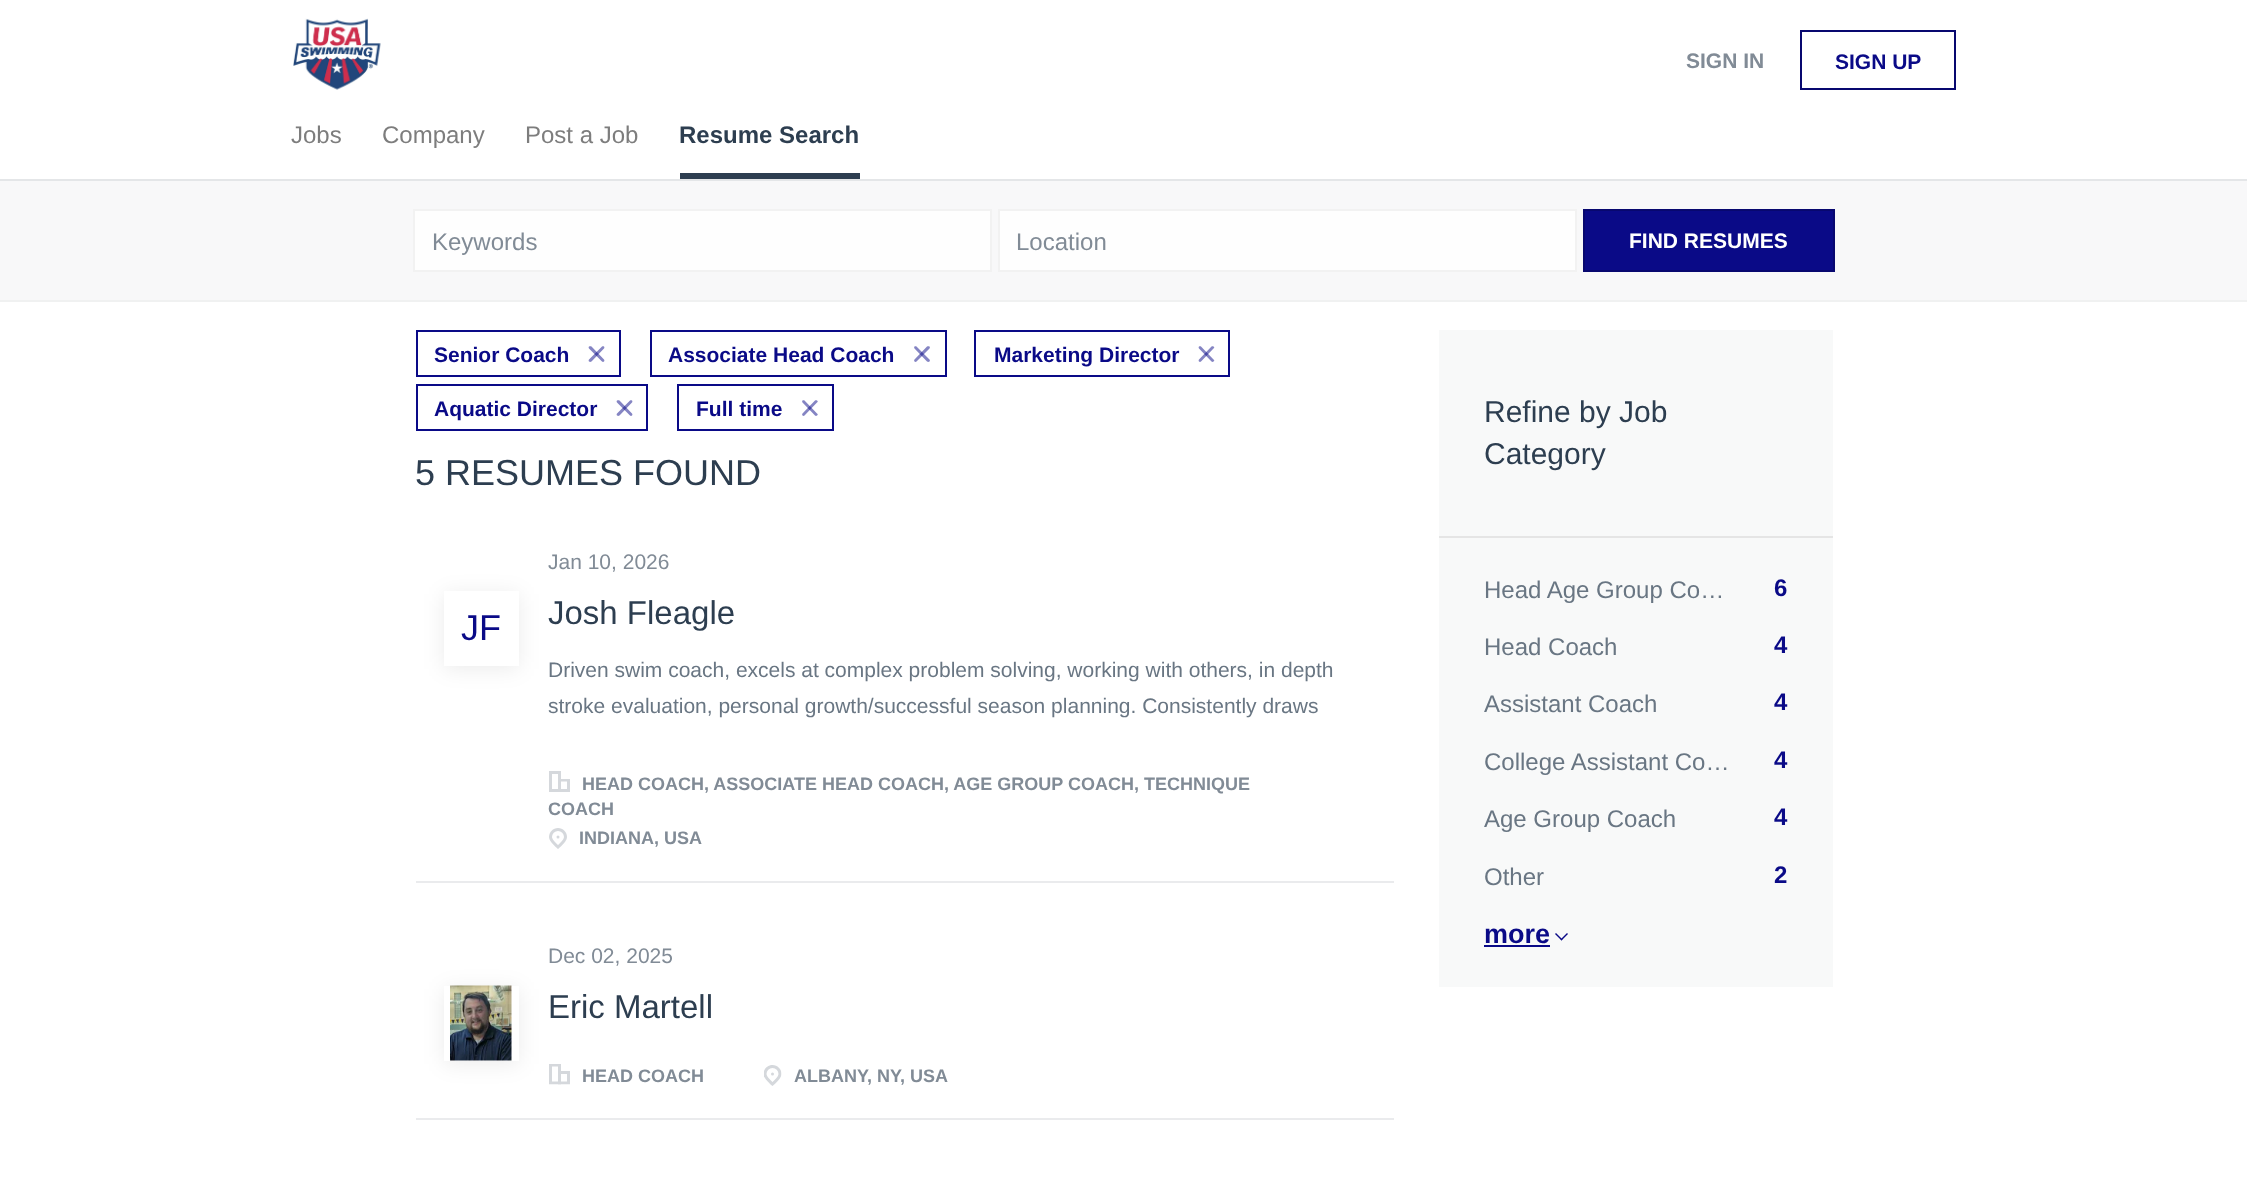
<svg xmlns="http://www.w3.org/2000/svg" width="2247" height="1179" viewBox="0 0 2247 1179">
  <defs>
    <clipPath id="clip1"><path d="M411 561H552V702H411ZM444 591H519V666H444Z" clip-rule="evenodd"/></clipPath>
    <filter id="blur1" x="-50%" y="-200%" width="200%" height="500%"><feGaussianBlur stdDeviation="10.5"/></filter>
  </defs>
  <rect width="100%" height="100%" fill="#ffffff"/>
  <rect x="0" y="179" width="2247" height="2" fill="#e4e6e8"/>
  <image x="293" y="18" width="88" height="72" href="img1.png"/>
  <text x="1686" y="68" font-family="Liberation Sans" font-size="21" font-weight="bold" fill="#818b96">SIGN IN</text>
  <rect x="1801" y="31" width="154" height="58" fill="none" stroke="#08086f" stroke-width="2"/>
  <text x="1835" y="69" font-family="Liberation Sans" font-size="21" font-weight="bold" fill="#0a0a87">SIGN UP</text>
  <text x="291" y="143" font-family="Liberation Sans" font-size="24" fill="#7d7d7d">Jobs</text>
  <text x="382" y="143" font-family="Liberation Sans" font-size="24" fill="#7d7d7d">Company</text>
  <text x="525" y="143" font-family="Liberation Sans" font-size="24" fill="#7d7d7d">Post a Job</text>
  <rect x="680" y="173" width="180" height="6" fill="#2d3e50"/>
  <text x="679" y="143" font-family="Liberation Sans" font-size="24" font-weight="bold" fill="#2d3e50">Resume Search</text>
  <rect x="0" y="300" width="2247" height="2" fill="#f0f1f1"/>
  <rect x="0" y="181" width="2247" height="119" fill="#f8f8f9"/>
  <rect x="414" y="210" width="577" height="61" fill="#fefefe" stroke="#f2f2f2" stroke-width="2"/>
  <text x="432" y="250" font-family="Liberation Sans" font-size="24" fill="#818b96">Keywords</text>
  <rect x="999" y="210" width="577" height="61" fill="#fefefe" stroke="#f2f2f2" stroke-width="2"/>
  <text x="1016" y="250" font-family="Liberation Sans" font-size="24" fill="#818b96">Location</text>
  <rect x="1584" y="210" width="250" height="61" fill="#0a0a87" stroke="#08086f" stroke-width="2"/>
  <text x="1629" y="248" font-family="Liberation Sans" font-size="21" font-weight="bold" fill="#ffffff">FIND RESUMES</text>
  <rect x="417" y="331" width="203" height="45" fill="none" stroke="#0a0a87" stroke-width="2"/>
  <text x="434" y="362" font-family="Liberation Sans" font-size="21" font-weight="bold" fill="#0a0a87">Senior Coach</text>
  <path d="M589 359.5L602 346.5C602.5 346 603.5 346 604 346.5C604.5 347 604.5 348 604 348.5L591.5 361.5C590.5 362 590 362 589 361.5C588.5 361 588.5 360 589 359.5Z" fill="#8585c3"/>
  <path d="M591.5 346.5L604 359.5C604.5 360 604.5 361 604 361.5C603.5 362 602.5 362 602 361.5L589 348.5C588.5 348 588.5 347 589 346.5C590 346 590.5 346 591.5 346.5Z" fill="#0a0a87" fill-opacity="0.5"/>
  <rect x="651" y="331" width="295" height="45" fill="none" stroke="#0a0a87" stroke-width="2"/>
  <text x="668" y="362" font-family="Liberation Sans" font-size="21" font-weight="bold" fill="#0a0a87">Associate Head Coach</text>
  <path d="M914.5 359.5L927 346.5C928 346 928.5 346 929.5 346.5C930 347 930 348 929.5 348.5L916.5 361.5C916 362 915 362 914.5 361.5C914 361 914 360 914.5 359.5Z" fill="#8585c3"/>
  <path d="M916.5 346.5L929.5 359.5C930 360 930 361 929.5 361.5C928.5 362 928 362 927 361.5L914.5 348.5C914 348 914 347 914.5 346.5C915 346 916 346 916.5 346.5Z" fill="#0a0a87" fill-opacity="0.5"/>
  <rect x="975" y="331" width="254" height="45" fill="none" stroke="#0a0a87" stroke-width="2"/>
  <text x="994" y="362" font-family="Liberation Sans" font-size="21" font-weight="bold" fill="#0a0a87">Marketing Director</text>
  <path d="M1199 359.5L1211.5 346.5C1212 346 1213 346 1213.5 346.5C1214.5 347 1214.5 348 1213.5 348.5L1201 361.5C1200.5 362 1199.5 362 1199 361.5C1198.5 361 1198.5 360 1199 359.5Z" fill="#8585c3"/>
  <path d="M1201 346.5L1213.5 359.5C1214.5 360 1214.5 361 1213.5 361.5C1213 362 1212 362 1211.5 361.5L1199 348.5C1198.5 348 1198.5 347 1199 346.5C1199.5 346 1200.5 346 1201 346.5Z" fill="#0a0a87" fill-opacity="0.5"/>
  <rect x="417" y="385" width="230" height="45" fill="none" stroke="#0a0a87" stroke-width="2"/>
  <text x="434" y="416" font-family="Liberation Sans" font-size="21" font-weight="bold" fill="#0a0a87">Aquatic Director</text>
  <path d="M617 413.5L630 400.5C630.5 400 631.5 400 632 400.5C632.5 401 632.5 402 632 402.5L619.5 415.5C618.5 416 618 416 617 415.5C616.5 415 616.5 414 617 413.5Z" fill="#8585c3"/>
  <path d="M619.5 400.5L632 413.5C632.5 414 632.5 415 632 415.5C631.5 416 630.5 416 630 415.5L617 402.5C616.5 402 616.5 401 617 400.5C618 400 618.5 400 619.5 400.5Z" fill="#0a0a87" fill-opacity="0.5"/>
  <rect x="678" y="385" width="155" height="45" fill="none" stroke="#0a0a87" stroke-width="2"/>
  <text x="696" y="416" font-family="Liberation Sans" font-size="21" font-weight="bold" fill="#0a0a87">Full time</text>
  <path d="M802.5 413.5L815 400.5C815.5 400 816.5 400 817 400.5C818 401 818 402 817 402.5L804.5 415.5C804 416 803 416 802.5 415.5C802 415 802 414 802.5 413.5Z" fill="#8585c3"/>
  <path d="M804.5 400.5L817 413.5C818 414 818 415 817 415.5C816.5 416 815.5 416 815 415.5L802.5 402.5C802 402 802 401 802.5 400.5C803 400 804 400 804.5 400.5Z" fill="#0a0a87" fill-opacity="0.5"/>
  <text x="415" y="485" font-family="Liberation Sans" font-size="36" fill="#2d3e50">5 RESUMES FOUND</text>
  <rect x="416" y="881" width="978" height="2" fill="#eaebed"/>
  <g clip-path="url(#clip1)">
    <rect x="444" y="594" width="75" height="75" fill="#000000" fill-opacity="0.08" filter="url(#blur1)"/>
  </g>
  <text x="461" y="640" font-family="Liberation Sans" font-size="36" fill="#0a0a87">JF</text>
  <text x="548" y="569" font-family="Liberation Sans" font-size="21" fill="#818b96">Jan 10, 2026</text>
  <text x="548" y="624" font-family="Liberation Sans" font-size="33" fill="#2d3e50">Josh Fleagle</text>
  <text x="548" y="677" font-family="Liberation Sans" font-size="21" fill="#697683">Driven swim coach, excels at complex problem solving, working with others, in depth</text>
  <text x="548" y="713" font-family="Liberation Sans" font-size="21" fill="#697683">stroke evaluation, personal growth/successful season planning. Consistently draws</text>
  <image x="549" y="771" width="21" height="21" href="img2.png"/>
  <text x="582" y="790" font-family="Liberation Sans" font-size="18" font-weight="bold" fill="#818b96">HEAD COACH, ASSOCIATE HEAD COACH, AGE GROUP COACH, TECHNIQUE</text>
  <text x="548" y="815" font-family="Liberation Sans" font-size="18" font-weight="bold" fill="#818b96">COACH</text>
  <image x="549" y="828" width="18" height="21" href="img3.png"/>
  <text x="579" y="844" font-family="Liberation Sans" font-size="18" font-weight="bold" fill="#818b96">INDIANA, USA</text>
  <rect x="416" y="1118" width="978" height="2" fill="#eaebed"/>
  <rect x="444" y="989" width="75" height="75" fill="#000000" fill-opacity="0.08" filter="url(#blur1)"/>
  <rect x="444" y="986" width="75" height="75" fill="#ffffff"/>
  <image x="450" y="985" width="62" height="76" href="img4.png"/>
  <text x="548" y="963" font-family="Liberation Sans" font-size="21" fill="#818b96">Dec 02, 2025</text>
  <text x="548" y="1018" font-family="Liberation Sans" font-size="33" fill="#2d3e50">Eric Martell</text>
  <image x="549" y="1064" width="21" height="21" href="img5.png"/>
  <text x="582" y="1082" font-family="Liberation Sans" font-size="18" font-weight="bold" fill="#818b96">HEAD COACH</text>
  <image x="764" y="1065" width="18" height="21" href="img6.png"/>
  <text x="794" y="1082" font-family="Liberation Sans" font-size="18" font-weight="bold" fill="#818b96">ALBANY, NY, USA</text>
  <rect x="1439" y="330" width="394" height="657" fill="#f8f9f9"/>
  <rect x="1439" y="536" width="394" height="2" fill="#e5e5e5"/>
  <text x="1484" y="422" font-family="Liberation Sans" font-size="30" fill="#2d3e50">Refine by Job</text>
  <text x="1484" y="464" font-family="Liberation Sans" font-size="30" fill="#2d3e50">Category</text>
  <text x="1484" y="598" font-family="Liberation Sans" font-size="24" fill="#697683">Head Age Group Co…</text>
  <text x="1774" y="596" font-family="Liberation Sans" font-size="24" font-weight="bold" fill="#0a0a87">6</text>
  <text x="1484" y="655" font-family="Liberation Sans" font-size="24" fill="#697683">Head Coach</text>
  <text x="1774" y="653" font-family="Liberation Sans" font-size="24" font-weight="bold" fill="#0a0a87">4</text>
  <text x="1484" y="712" font-family="Liberation Sans" font-size="24" fill="#697683">Assistant Coach</text>
  <text x="1774" y="710" font-family="Liberation Sans" font-size="24" font-weight="bold" fill="#0a0a87">4</text>
  <text x="1484" y="770" font-family="Liberation Sans" font-size="24" fill="#697683">College Assistant Co…</text>
  <text x="1774" y="768" font-family="Liberation Sans" font-size="24" font-weight="bold" fill="#0a0a87">4</text>
  <text x="1484" y="827" font-family="Liberation Sans" font-size="24" fill="#697683">Age Group Coach</text>
  <text x="1774" y="825" font-family="Liberation Sans" font-size="24" font-weight="bold" fill="#0a0a87">4</text>
  <text x="1484" y="885" font-family="Liberation Sans" font-size="24" fill="#697683">Other</text>
  <text x="1774" y="883" font-family="Liberation Sans" font-size="24" font-weight="bold" fill="#0a0a87">2</text>
  <text x="1484" y="943" font-family="Liberation Sans" font-size="27" font-weight="bold" fill="#0a0a87">more</text>
  <rect x="1484" y="945" width="66" height="2" fill="#0a0a87"/>
  <path d="M1568 934L1561.5 940.5L1560.5 939.5L1567 933Z" fill="#0a0a87"/>
  <path d="M1562.5 939.5L1561.5 940.5L1555 934L1556 933Z" fill="#0a0a87"/>
</svg>
